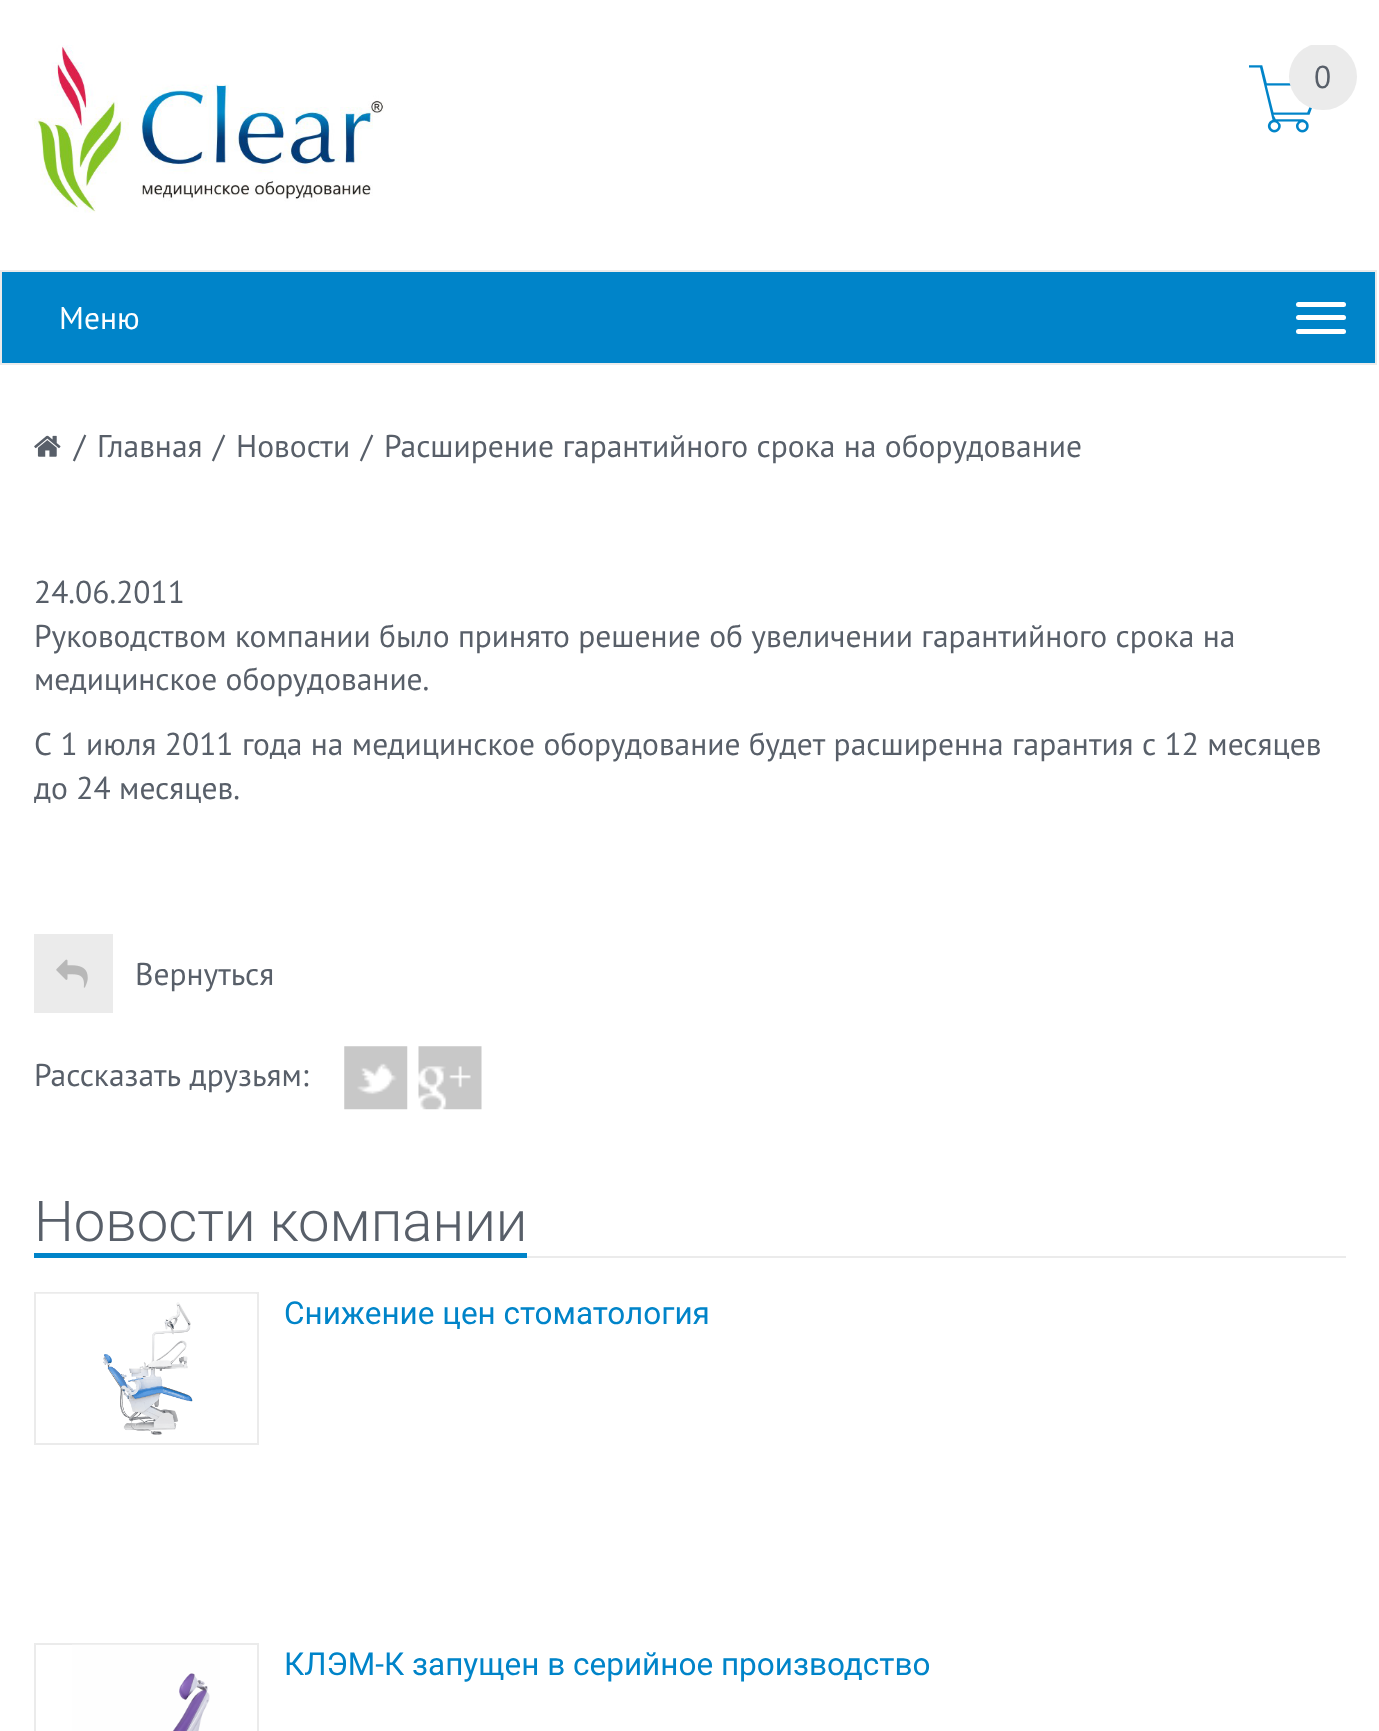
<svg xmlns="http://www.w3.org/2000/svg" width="1379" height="1731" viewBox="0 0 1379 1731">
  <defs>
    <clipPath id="clip1"><rect x="0" y="45" width="1379" height="169"/></clipPath>
  </defs>
  <rect width="100%" height="100%" fill="#ffffff"/>
  <image x="34" y="45" width="350" height="168" href="img1.png"/>
  <image x="1249" y="65" width="63" height="68" href="img2.png"/>
  <g clip-path="url(#clip1)">
    <rect x="1289" y="43" width="68" height="67" rx="33.5" fill="#ebebeb"/>
  </g>
  <text x="1314" y="88" font-family="PT Sans" font-size="31.5" fill="#585f69">0</text>
  <rect x="1" y="271" width="1375" height="93" fill="#0084c9" stroke="#ebebeb" stroke-width="2"/>
  <text x="59" y="329" font-family="PT Sans" font-size="31.5" fill="#ffffff">Меню</text>
  <rect x="1296" y="302" width="50" height="5" rx="2.5" fill="#ffffff"/>
  <rect x="1296" y="315" width="50" height="5" rx="2.5" fill="#ffffff"/>
  <rect x="1296" y="329" width="50" height="5" rx="2.5" fill="#ffffff"/>
  <image x="34" y="435" width="27" height="22" href="img3.png"/>
  <text x="74" y="457" font-family="PT Sans" font-size="31.5" fill="#585f69">/</text>
  <text x="97" y="457" font-family="PT Sans" font-size="31.5" fill="#585f69">Главная</text>
  <text x="213" y="457" font-family="PT Sans" font-size="31.5" fill="#585f69">/</text>
  <text x="236" y="457" font-family="PT Sans" font-size="31.5" fill="#585f69">Новости</text>
  <text x="361" y="457" font-family="PT Sans" font-size="31.5" fill="#585f69">/</text>
  <text x="384" y="457" font-family="PT Sans" font-size="31.5" fill="#585f69">Расширение гарантийного срока на оборудование</text>
  <text x="34" y="603" font-family="PT Sans" font-size="31.5" fill="#585f69">24.06.2011</text>
  <text x="34" y="647" font-family="PT Sans" font-size="31.5" fill="#585f69">Руководством компании было принято решение об увеличении гарантийного срока на</text>
  <text x="34" y="690" font-family="PT Sans" font-size="31.5" fill="#585f69">медицинское оборудование.</text>
  <text x="34" y="755" font-family="PT Sans" font-size="31.5" fill="#585f69">С 1 июля 2011 года на медицинское оборудование будет расширенна гарантия с 12 месяцев</text>
  <text x="34" y="799" font-family="PT Sans" font-size="31.5" fill="#585f69">до 24 месяцев.</text>
  <rect x="34" y="934" width="79" height="79" fill="#ebebeb"/>
  <image x="56" y="959" width="32" height="29" href="img4.png"/>
  <text x="135" y="985" font-family="PT Sans" font-size="31.5" fill="#585f69">Вернуться</text>
  <text x="34" y="1086" font-family="PT Sans" font-size="31.5" fill="#585f69">Рассказать друзьям:</text>
  <image x="344" y="1046" width="64" height="64" href="img5.png"/>
  <image x="418" y="1046" width="64" height="64" href="img6.png"/>
  <rect x="527" y="1256" width="819" height="2" fill="#ebebeb"/>
  <text x="34" y="1241" font-family="Roboto" font-size="56.25" font-weight="300" fill="#585f69">Новости компании</text>
  <rect x="34" y="1253" width="493" height="5" fill="#0084c9"/>
  <rect x="35" y="1293" width="223" height="151" fill="none" stroke="#ebebeb" stroke-width="2"/>
  <image x="36" y="1293" width="220" height="142" href="img7.png"/>
  <text x="284" y="1324" font-family="Roboto" font-size="31.5" fill="#0084c9">Снижение цен стоматология</text>
  <rect x="35" y="1644" width="223" height="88" fill="none" stroke="#ebebeb" stroke-width="2"/>
  <image x="72" y="1644" width="148" height="87" href="img8.png"/>
  <text x="284" y="1675" font-family="Roboto" font-size="31.5" fill="#0084c9">КЛЭМ-К запущен в серийное производство</text>
</svg>
